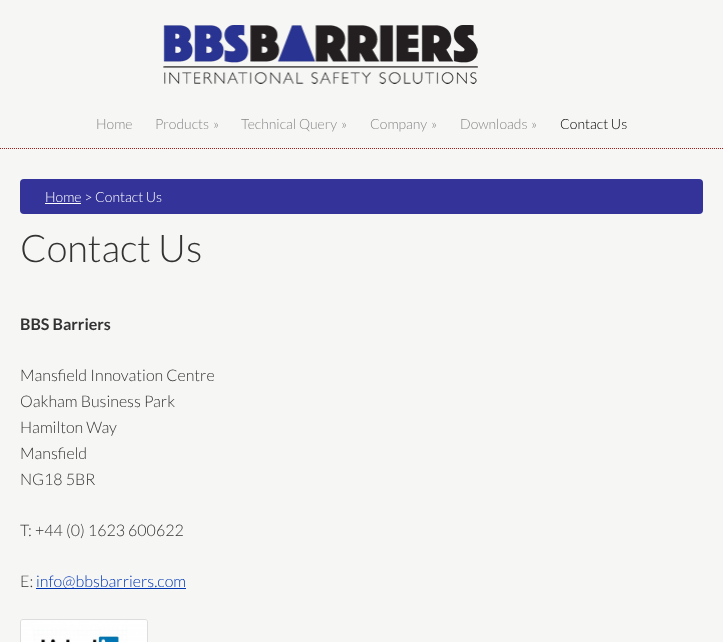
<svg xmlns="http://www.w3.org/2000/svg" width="723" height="642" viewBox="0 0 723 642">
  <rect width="100%" height="100%" fill="#f6f6f5"/>
  <path d="M0 148.5H723" fill="none" stroke="#a81b1b" stroke-dasharray="1 1"/>
  <image x="163" y="25" width="315" height="59" href="img1.png"/>
  <text x="96" y="129" font-family="Lato" font-size="14" font-weight="300" fill="#888888">Home</text>
  <text x="155" y="129" font-family="Lato" font-size="14" font-weight="300" fill="#888888">Products</text>
  <text x="213" y="129" font-family="Lato" font-size="14" font-weight="300" fill="#888888">»</text>
  <text x="241" y="129" font-family="Lato" font-size="14" font-weight="300" fill="#888888">Technical Query</text>
  <text x="341" y="129" font-family="Lato" font-size="14" font-weight="300" fill="#888888">»</text>
  <text x="370" y="129" font-family="Lato" font-size="14" font-weight="300" fill="#888888">Company</text>
  <text x="431" y="129" font-family="Lato" font-size="14" font-weight="300" fill="#888888">»</text>
  <text x="460" y="129" font-family="Lato" font-size="14" font-weight="300" fill="#888888">Downloads</text>
  <text x="531" y="129" font-family="Lato" font-size="14" font-weight="300" fill="#888888">»</text>
  <text x="560" y="129" font-family="Lato" font-size="14" font-weight="300" fill="#000000">Contact Us</text>
  <rect x="20" y="179" width="683" height="35" rx="4" fill="#333399"/>
  <text x="45" y="202" font-family="Lato" font-size="14" font-weight="300" fill="#ffffff">Home &gt; Contact Us</text>
  <rect x="45" y="203" width="36" height="1" fill="#ffffff"/>
  <text x="20" y="262" font-family="Lato" font-size="38" font-weight="300" fill="#333333">Contact Us</text>
  <text x="20" y="330" font-family="Lato" font-size="16" font-weight="bold" fill="#333333">BBS Barriers</text>
  <text x="20" y="381" font-family="Lato" font-size="16" font-weight="300" fill="#333333">Mansfield Innovation Centre</text>
  <text x="20" y="407" font-family="Lato" font-size="16" font-weight="300" fill="#333333">Oakham Business Park</text>
  <text x="20" y="433" font-family="Lato" font-size="16" font-weight="300" fill="#333333">Hamilton Way</text>
  <text x="20" y="459" font-family="Lato" font-size="16" font-weight="300" fill="#333333">Mansfield</text>
  <text x="20" y="485" font-family="Lato" font-size="16" font-weight="300" fill="#333333">NG18 5BR</text>
  <text x="20" y="536" font-family="Lato" font-size="16" font-weight="300" fill="#333333">T: +44 (0) 1623 600622</text>
  <text x="20" y="587" font-family="Lato" font-size="16" font-weight="300" fill="#333333">E:</text>
  <rect x="36" y="588" width="150" height="1" fill="#0037b4"/>
  <text x="36" y="587" font-family="Lato" font-size="16" font-weight="300" fill="#0037b4">info@bbsbarriers.com</text>
  <rect x="20.5" y="619.5" width="127" height="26" rx="2.5" fill="none" stroke="#dddddd"/>
  <image x="21" y="620" width="126" height="22" href="img2.png"/>
</svg>
